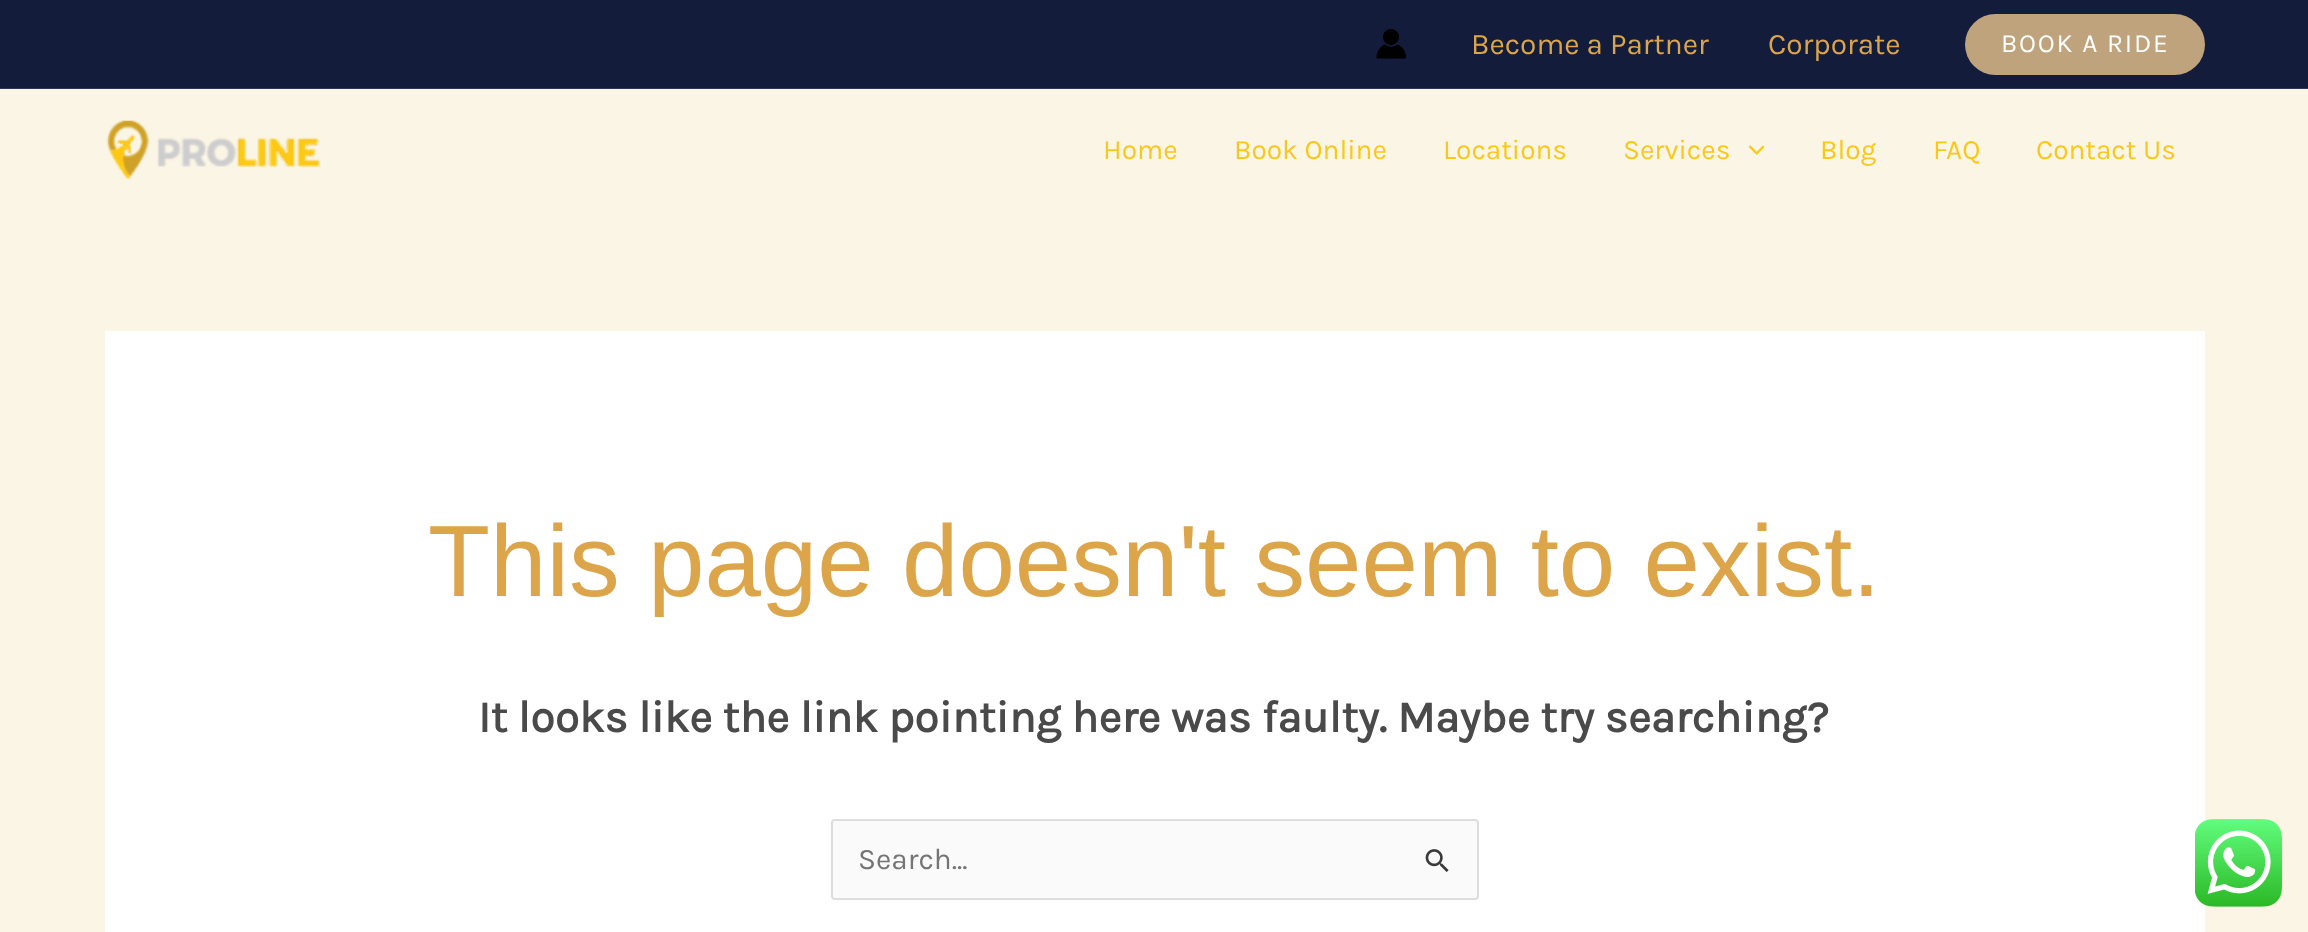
<svg xmlns="http://www.w3.org/2000/svg" width="2308" height="932" viewBox="0 0 2308 932">
  <rect width="100%" height="100%" fill="#faf5e5"/>
  <rect x="0" y="89" width="2308" height="1" fill="#fbf6e8"/>
  <rect x="0" y="0" width="2308" height="88" fill="#131d3b"/>
  <rect x="0" y="88" width="2308" height="1" fill="#2f3853"/>
  <image x="1376" y="29" width="30" height="30" href="img1.png"/>
  <text x="1471" y="54" font-family="Karla" font-size="29.75" fill="#dca54a">Become a Partner</text>
  <text x="1768" y="54" font-family="Karla" font-size="29.75" fill="#dca54a">Corporate</text>
  <rect x="1965" y="14" width="240" height="61" rx="30.5" fill="#bfa37c"/>
  <text x="2001" y="52" font-family="Karla" font-size="26.25" letter-spacing="1.75" fill="#ffffff">BOOK A RIDE</text>
  <image x="106" y="120" width="215" height="60" href="img2.png"/>
  <text x="1103" y="159" font-family="Karla" font-size="28" fill="#fac81c">Home</text>
  <text x="1234" y="159" font-family="Karla" font-size="28" fill="#fac81c">Book Online</text>
  <text x="1443" y="159" font-family="Karla" font-size="28" fill="#fac81c">Locations</text>
  <text x="1623" y="159" font-family="Karla" font-size="28" fill="#fac81c">Services</text>
  <image x="1748" y="145" width="16" height="10" href="img3.png"/>
  <text x="1820" y="159" font-family="Karla" font-size="28" fill="#fac81c">Blog</text>
  <text x="1933" y="159" font-family="Karla" font-size="28" fill="#fac81c">FAQ</text>
  <text x="2036" y="159" font-family="Karla" font-size="28" fill="#fac81c">Contact Us</text>
  <rect x="105" y="331" width="2100" height="601" fill="#ffffff"/>
  <text x="428" y="596" font-family="Liberation Sans" font-size="101.5" fill="#dca54a">This page doesn't seem to exist.</text>
  <text x="478" y="732" font-family="Karla" font-size="44.6" font-weight="bold" fill="#4a4a4a">It looks like the link pointing here was faulty. Maybe try searching?</text>
  <rect x="832" y="820" width="646" height="79" rx="3" fill="#fafafa" stroke="#dddddd" stroke-width="2"/>
  <text x="858" y="869" font-family="Karla" font-size="29.75" fill="#757575">Search...</text>
  <image x="1425" y="849" width="24" height="23" href="img4.png"/>
  <image x="2195" y="819" width="87" height="88" href="img5.png"/>
</svg>
